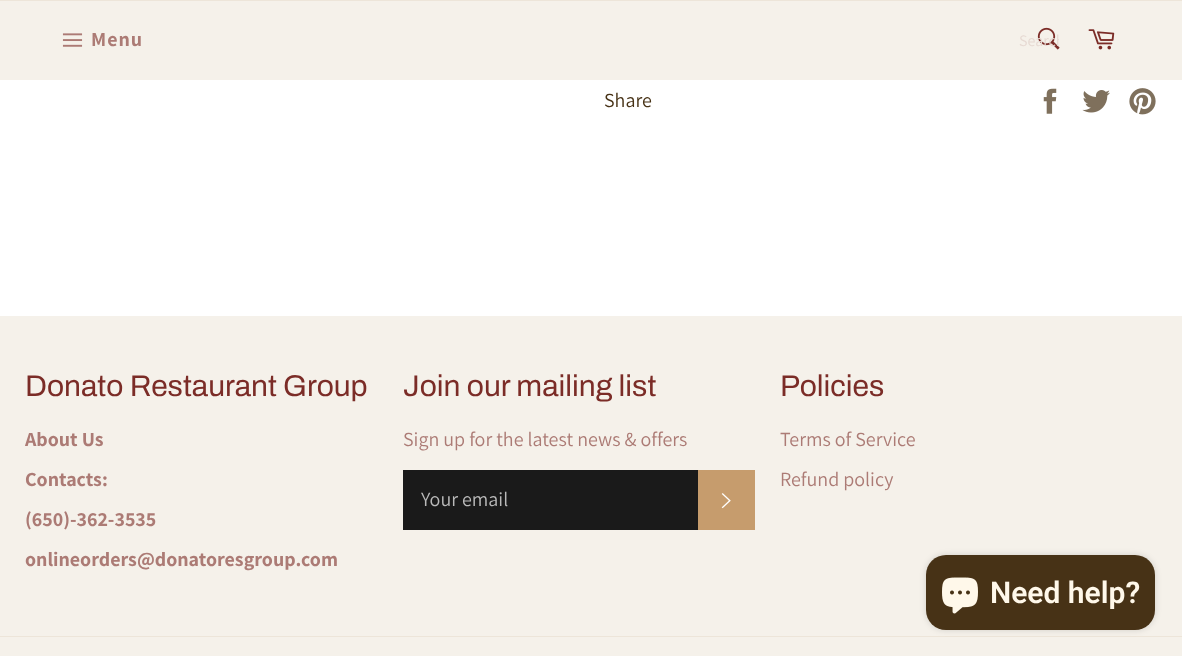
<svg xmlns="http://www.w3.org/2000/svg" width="1182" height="656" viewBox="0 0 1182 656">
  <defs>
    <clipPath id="clip1"><rect x="1019" y="30" width="40" height="21"/></clipPath>
    <filter id="blur1" x="-50%" y="-200%" width="200%" height="500%"><feGaussianBlur stdDeviation="3"/></filter>
  </defs>
  <rect width="100%" height="100%" fill="#ffffff"/>
  <rect x="0" y="1" width="1182" height="79" fill="#f5f1ea"/>
  <rect x="0" y="0" width="1182" height="1" fill="#ede5d9"/>
  <image x="62" y="33" width="21" height="14" href="img1.png"/>
  <text x="91" y="46" font-family="Assistant" font-size="20" font-weight="bold" letter-spacing="1" fill="#ac7b75">Menu</text>
  <image x="1037" y="27" width="23" height="23" href="img2.png"/>
  <g clip-path="url(#clip1)">
    <text x="1019" y="46" font-family="Assistant" font-size="16" fill="#e6d9d2">Search</text>
  </g>
  <image x="1088" y="29" width="27" height="21" href="img3.png"/>
  <text x="604" y="107" font-family="Assistant" font-size="20" fill="#473216">Share</text>
  <image x="1043" y="88" width="14" height="26" href="img4.png"/>
  <image x="1082" y="90" width="28" height="23" href="img5.png"/>
  <image x="1129" y="88" width="27" height="27" href="img6.png"/>
  <rect x="0" y="316" width="1182" height="340" fill="#f5f1ea"/>
  <text x="25" y="396" font-family="Archivo" font-size="30" fill="#7b2c27">Donato Restaurant Group</text>
  <text x="25" y="446" font-family="Assistant" font-size="20" font-weight="bold" fill="#ac7b75">About Us</text>
  <text x="25" y="486" font-family="Assistant" font-size="20" font-weight="bold" fill="#ac7b75">Contacts:</text>
  <text x="25" y="526" font-family="Assistant" font-size="20" font-weight="bold" fill="#ac7b75">(650)-362-3535</text>
  <text x="25" y="566" font-family="Assistant" font-size="20" font-weight="bold" fill="#ac7b75">onlineorders@donatoresgroup.com</text>
  <text x="403" y="396" font-family="Archivo" font-size="30" fill="#7b2c27">Join our mailing list</text>
  <text x="403" y="446" font-family="Assistant" font-size="20" fill="#ac7b75">Sign up for the latest news &amp; offers</text>
  <rect x="403" y="470" width="295" height="60" fill="#1a1a1a"/>
  <text x="421" y="506" font-family="Assistant" font-size="20" fill="#bababa">Your email</text>
  <rect x="698" y="470" width="57" height="60" fill="#c69c6d"/>
  <image x="721" y="493" width="10" height="16" href="img7.png"/>
  <text x="780" y="396" font-family="Archivo" font-size="30" fill="#7b2c27">Policies</text>
  <text x="780" y="446" font-family="Assistant" font-size="20" fill="#ac7b75">Terms of Service</text>
  <text x="780" y="486" font-family="Assistant" font-size="20" fill="#ac7b75">Refund policy</text>
  <rect x="0" y="636" width="1182" height="1" fill="#ede5d9"/>
  <rect x="926" y="555" width="229" height="75" rx="20" fill="#000000" fill-opacity="0.15" filter="url(#blur1)"/>
  <rect x="926" y="555" width="229" height="75" rx="20" fill="#473216"/>
  <image x="942" y="577" width="36" height="37" href="img8.png"/>
  <text x="990" y="603" font-family="Roboto" font-size="30" font-weight="600" fill="#fff8ea">Need help?</text>
</svg>
